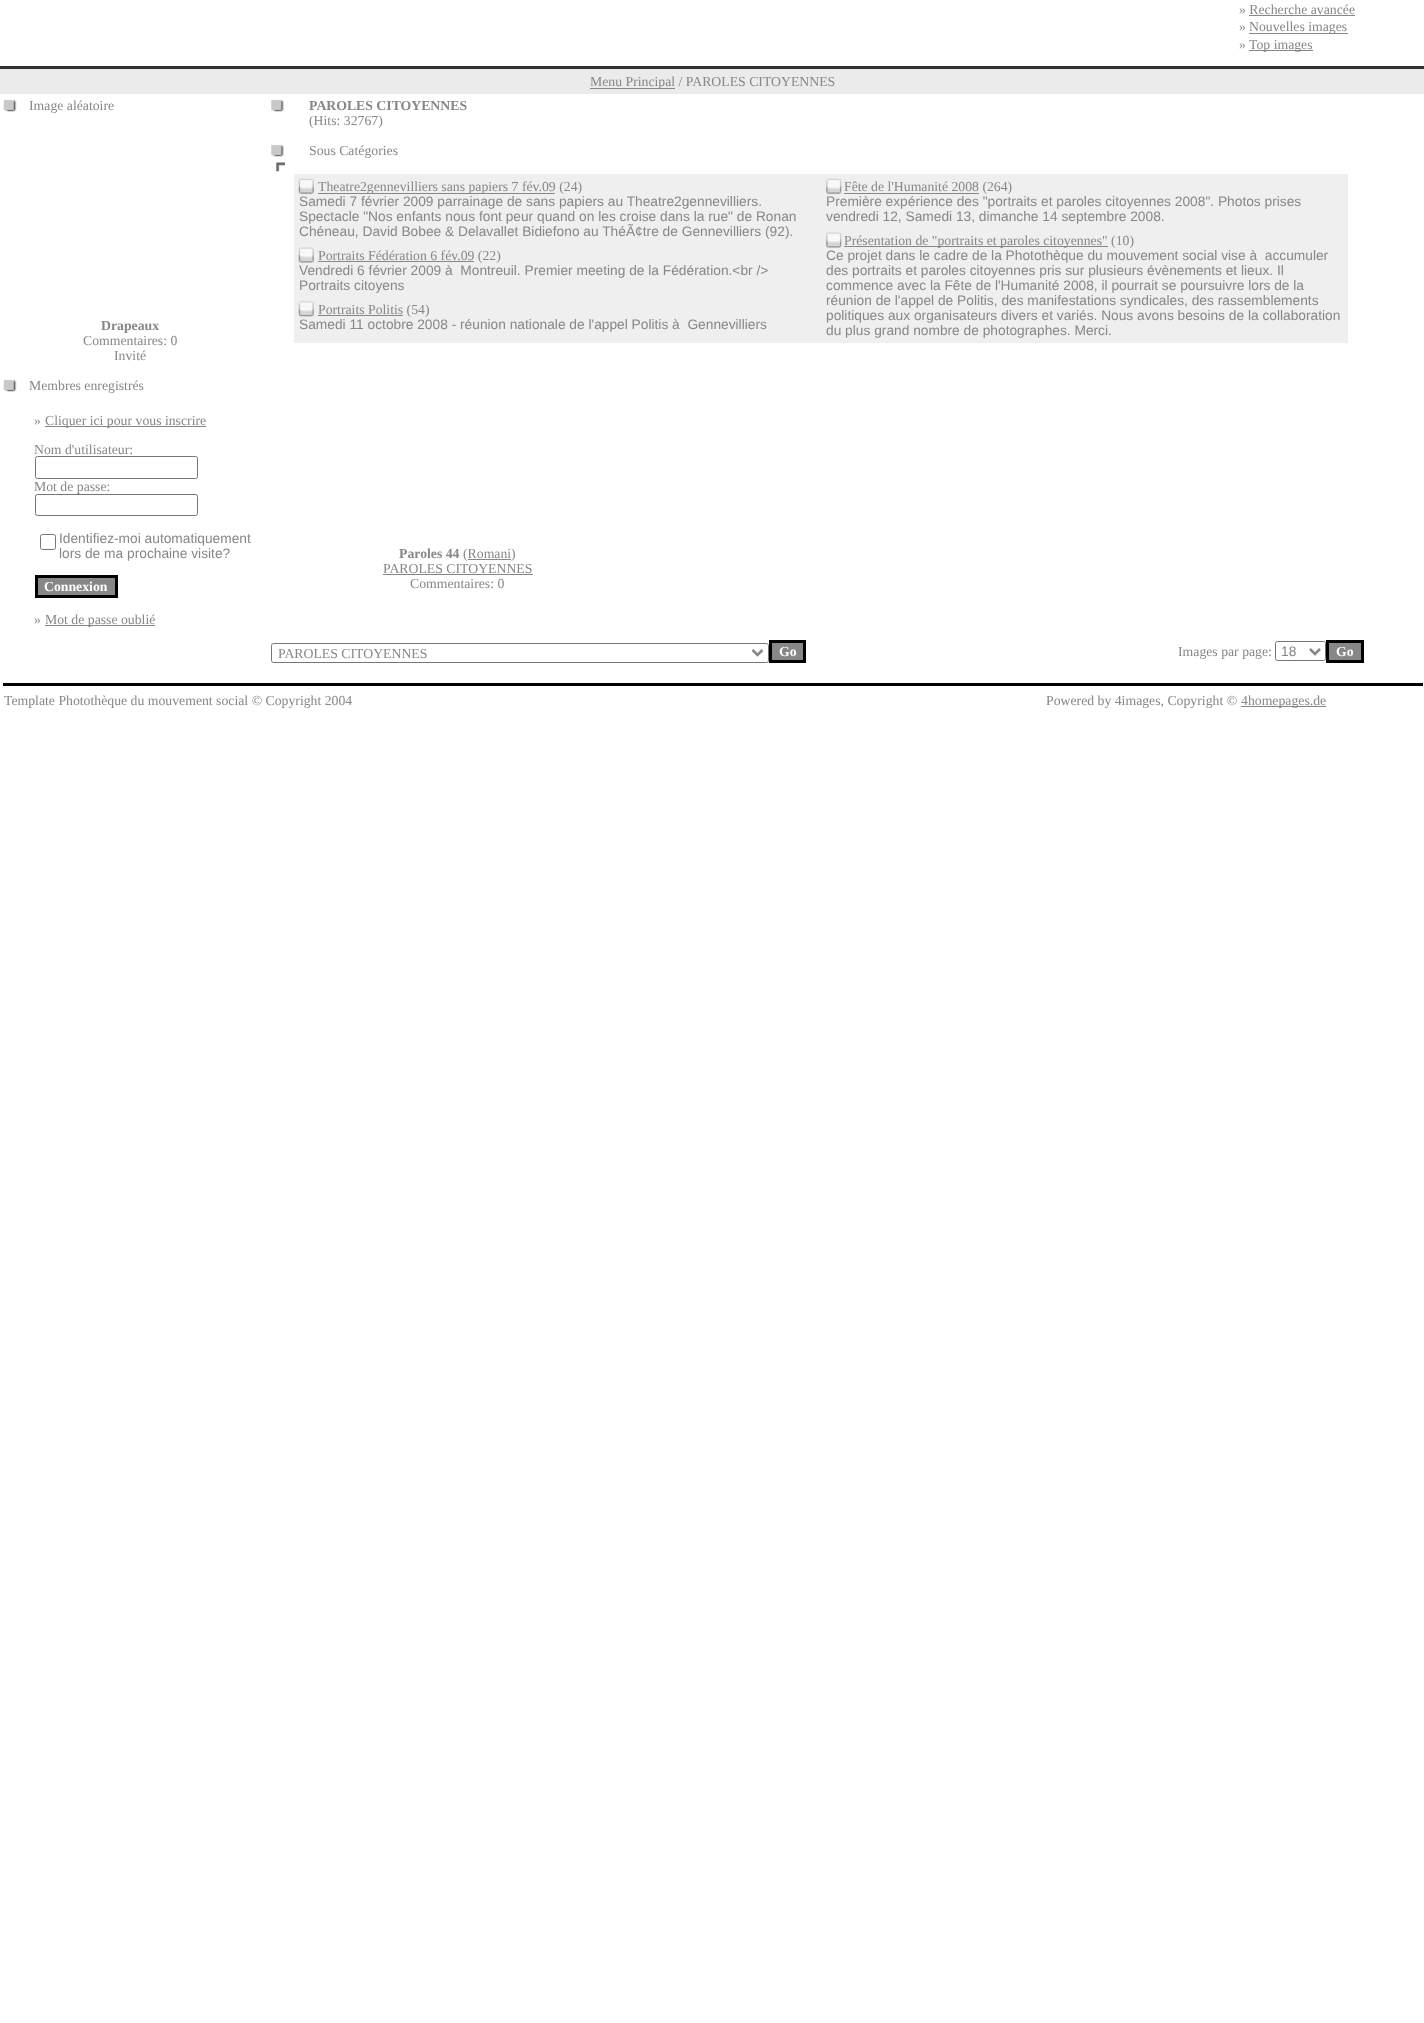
<svg xmlns="http://www.w3.org/2000/svg" width="1424" height="2023" viewBox="0 0 1424 2023">
  <rect width="100%" height="100%" fill="#ffffff"/>
  <text x="1239" y="14" font-family="Liberation Serif" font-size="13.75" fill="#878787">» Recherche avancée</text>
  <rect x="1249" y="15" width="106" height="1" fill="#878787"/>
  <text x="1239" y="31" font-family="Liberation Serif" font-size="13.75" fill="#878787">»</text>
  <rect x="1249" y="33" width="99" height="1" fill="#878787"/>
  <text x="1249" y="31" font-family="Liberation Serif" font-size="13.75" fill="#878787">Nouvelles images</text>
  <text x="1239" y="49" font-family="Liberation Serif" font-size="13.75" fill="#878787">»</text>
  <rect x="1249" y="50" width="64" height="1" fill="#878787"/>
  <text x="1249" y="49" font-family="Liberation Serif" font-size="13.75" fill="#878787">Top images</text>
  <rect x="0" y="66" width="1424" height="3" fill="#333333"/>
  <rect x="0" y="69" width="1424" height="25" fill="#ebebeb"/>
  <rect x="590" y="88" width="85" height="1" fill="#878787"/>
  <text x="590" y="86" font-family="Liberation Serif" font-size="13.75" fill="#878787">Menu Principal / PAROLES CITOYENNES</text>
  <image x="3" y="99" width="14" height="13" href="img1.png"/>
  <text x="29" y="110" font-family="Liberation Serif" font-size="13.75" fill="#878787">Image aléatoire</text>
  <text x="101" y="330" font-family="Liberation Serif" font-size="13.75" font-weight="bold" fill="#878787">Drapeaux</text>
  <text x="83" y="345" font-family="Liberation Serif" font-size="13.75" fill="#878787">Commentaires: 0</text>
  <text x="114" y="360" font-family="Liberation Serif" font-size="13.75" fill="#878787">Invité</text>
  <image x="3" y="379" width="14" height="13" href="img1.png"/>
  <text x="29" y="390" font-family="Liberation Serif" font-size="13.75" fill="#878787">Membres enregistrés</text>
  <text x="34" y="425" font-family="Liberation Serif" font-size="13.75" fill="#878787">»</text>
  <rect x="45" y="426" width="161" height="1" fill="#878787"/>
  <text x="45" y="425" font-family="Liberation Serif" font-size="13.75" fill="#878787">Cliquer ici pour vous inscrire</text>
  <text x="34" y="454" font-family="Liberation Serif" font-size="13.75" fill="#878787">Nom d'utilisateur:</text>
  <rect x="35.5" y="456.5" width="162" height="22" rx="2" fill="none" stroke="#767676"/>
  <text x="34" y="491" font-family="Liberation Serif" font-size="13.75" fill="#878787">Mot de passe:</text>
  <rect x="35.5" y="494.5" width="162" height="21" rx="2" fill="none" stroke="#767676"/>
  <rect x="40.5" y="534.5" width="15" height="15" rx="2" fill="none" stroke="#767676"/>
  <text x="59" y="543" font-family="Liberation Sans" font-size="13.75" fill="#878787">Identifiez-moi automatiquement</text>
  <text x="59" y="558" font-family="Liberation Sans" font-size="13.75" fill="#878787">lors de ma prochaine visite?</text>
  <rect x="36.5" y="576.5" width="80" height="20" fill="#878787" stroke="#000000" stroke-width="3"/>
  <text x="44" y="591" font-family="Liberation Serif" font-size="13.75" font-weight="bold" fill="#ffffff">Connexion</text>
  <text x="34" y="624" font-family="Liberation Serif" font-size="13.75" fill="#878787">»</text>
  <rect x="45" y="625" width="110" height="1" fill="#878787"/>
  <text x="45" y="624" font-family="Liberation Serif" font-size="13.75" fill="#878787">Mot de passe oublié</text>
  <image x="271" y="99" width="13" height="13" href="img2.png"/>
  <text x="309" y="110" font-family="Liberation Serif" font-size="13.75" font-weight="bold" fill="#878787">PAROLES CITOYENNES</text>
  <text x="309" y="125" font-family="Liberation Serif" font-size="13.75" fill="#878787">(Hits: 32767)</text>
  <image x="271" y="144" width="13" height="13" href="img2.png"/>
  <text x="309" y="155" font-family="Liberation Serif" font-size="13.75" fill="#878787">Sous Catégories</text>
  <image x="276" y="162" width="9" height="10" href="img3.png"/>
  <rect x="294" y="174" width="1054" height="169" fill="#efefef"/>
  <image x="298" y="178" width="16" height="16" href="img4.png"/>
  <rect x="318" y="193" width="237" height="1" fill="#878787"/>
  <text x="318" y="191" font-family="Liberation Serif" font-size="13.75" fill="#878787">Theatre2gennevilliers sans papiers 7 fév.09 (24)</text>
  <text x="299" y="206" font-family="Liberation Sans" font-size="13.75" fill="#878787">Samedi 7 février 2009 parrainage de sans papiers au Theatre2gennevilliers.</text>
  <text x="299" y="221" font-family="Liberation Sans" font-size="13.75" fill="#878787">Spectacle "Nos enfants nous font peur quand on les croise dans la rue" de Ronan</text>
  <text x="299" y="236" font-family="Liberation Sans" font-size="13.75" fill="#878787">Chéneau, David Bobee &amp; Delavallet Bidiefono au ThéÃ¢tre de Gennevilliers (92).</text>
  <image x="298" y="247" width="16" height="16" href="img5.png"/>
  <rect x="318" y="261" width="156" height="1" fill="#878787"/>
  <text x="318" y="260" font-family="Liberation Serif" font-size="13.75" fill="#878787">Portraits Fédération 6 fév.09 (22)</text>
  <text x="299" y="275" font-family="Liberation Sans" font-size="13.75" fill="#878787" xml:space="preserve">Vendredi 6 février 2009 à  Montreuil. Premier meeting de la Fédération.&lt;br /&gt;</text>
  <text x="299" y="290" font-family="Liberation Sans" font-size="13.75" fill="#878787">Portraits citoyens</text>
  <image x="298" y="301" width="16" height="16" href="img6.png"/>
  <rect x="318" y="315" width="85" height="1" fill="#878787"/>
  <text x="318" y="314" font-family="Liberation Serif" font-size="13.75" fill="#878787">Portraits Politis (54)</text>
  <text x="299" y="329" font-family="Liberation Sans" font-size="13.75" fill="#878787" xml:space="preserve">Samedi 11 octobre 2008 - réunion nationale de l'appel Politis à  Gennevilliers</text>
  <image x="826" y="178" width="16" height="16" href="img7.png"/>
  <rect x="844" y="193" width="135" height="1" fill="#878787"/>
  <text x="844" y="191" font-family="Liberation Serif" font-size="13.75" fill="#878787">Fête de l'Humanité 2008 (264)</text>
  <text x="826" y="206" font-family="Liberation Sans" font-size="13.75" fill="#878787">Première expérience des "portraits et paroles citoyennes 2008". Photos prises</text>
  <text x="826" y="221" font-family="Liberation Sans" font-size="13.75" fill="#878787">vendredi 12, Samedi 13, dimanche 14 septembre 2008.</text>
  <image x="826" y="232" width="16" height="16" href="img8.png"/>
  <rect x="844" y="246" width="264" height="1" fill="#878787"/>
  <text x="844" y="245" font-family="Liberation Serif" font-size="13.75" fill="#878787">Présentation de "portraits et paroles citoyennes" (10)</text>
  <text x="826" y="260" font-family="Liberation Sans" font-size="13.75" fill="#878787" xml:space="preserve">Ce projet dans le cadre de la Photothèque du mouvement social vise à  accumuler</text>
  <text x="826" y="275" font-family="Liberation Sans" font-size="13.75" fill="#878787">des portraits et paroles citoyennes pris sur plusieurs évènements et lieux. Il</text>
  <text x="826" y="290" font-family="Liberation Sans" font-size="13.75" fill="#878787">commence avec la Fête de l'Humanité 2008, il pourrait se poursuivre lors de la</text>
  <text x="826" y="305" font-family="Liberation Sans" font-size="13.75" fill="#878787">réunion de l'appel de Politis, des manifestations syndicales, des rassemblements</text>
  <text x="826" y="320" font-family="Liberation Sans" font-size="13.75" fill="#878787">politiques aux organisateurs divers et variés. Nous avons besoins de la collaboration</text>
  <text x="826" y="335" font-family="Liberation Sans" font-size="13.75" fill="#878787">du plus grand nombre de photographes. Merci.</text>
  <text x="399" y="558" font-family="Liberation Serif" font-size="13.75" font-weight="bold" fill="#878787">Paroles 44</text>
  <text x="463" y="558" font-family="Liberation Serif" font-size="13.75" fill="#878787">(Romani)</text>
  <rect x="468" y="559" width="43" height="1" fill="#878787"/>
  <text x="383" y="573" font-family="Liberation Serif" font-size="13.75" fill="#878787">PAROLES CITOYENNES</text>
  <rect x="383" y="574" width="150" height="1" fill="#878787"/>
  <text x="410" y="588" font-family="Liberation Serif" font-size="13.75" fill="#878787">Commentaires: 0</text>
  <rect x="271.5" y="643.5" width="497" height="19" rx="2" fill="none" stroke="#767676"/>
  <path d="M752.5 650L757.5 655L762.5 650" fill="none" stroke="#878787" stroke-width="2.5"/>
  <text x="278" y="658" font-family="Liberation Serif" font-size="13.75" fill="#878787">PAROLES CITOYENNES</text>
  <rect x="770.5" y="641.5" width="34" height="20" fill="#878787" stroke="#000000" stroke-width="3"/>
  <text x="779" y="656" font-family="Liberation Serif" font-size="13.75" font-weight="bold" fill="#ffffff">Go</text>
  <text x="1178" y="656" font-family="Liberation Serif" font-size="13.75" fill="#878787">Images par page:</text>
  <rect x="1275.5" y="641.5" width="50" height="19" rx="2" fill="none" stroke="#767676"/>
  <path d="M1310 649L1315 654L1320 649" fill="none" stroke="#878787" stroke-width="2.5"/>
  <text x="1281" y="656" font-family="Liberation Sans" font-size="13.75" fill="#878787">18</text>
  <rect x="1327.5" y="641.5" width="35" height="20" fill="#878787" stroke="#000000" stroke-width="3"/>
  <text x="1336" y="656" font-family="Liberation Serif" font-size="13.75" font-weight="bold" fill="#ffffff">Go</text>
  <rect x="3" y="683" width="1420" height="3" fill="#000000"/>
  <text x="4" y="705" font-family="Liberation Serif" font-size="13.75" fill="#878787">Template Photothèque du mouvement social © Copyright 2004</text>
  <text x="1046" y="705" font-family="Liberation Serif" font-size="13.75" fill="#878787">Powered by 4images, Copyright ©</text>
  <rect x="1241" y="706" width="85" height="1" fill="#878787"/>
  <text x="1241" y="705" font-family="Liberation Serif" font-size="13.75" fill="#878787">4homepages.de</text>
</svg>
